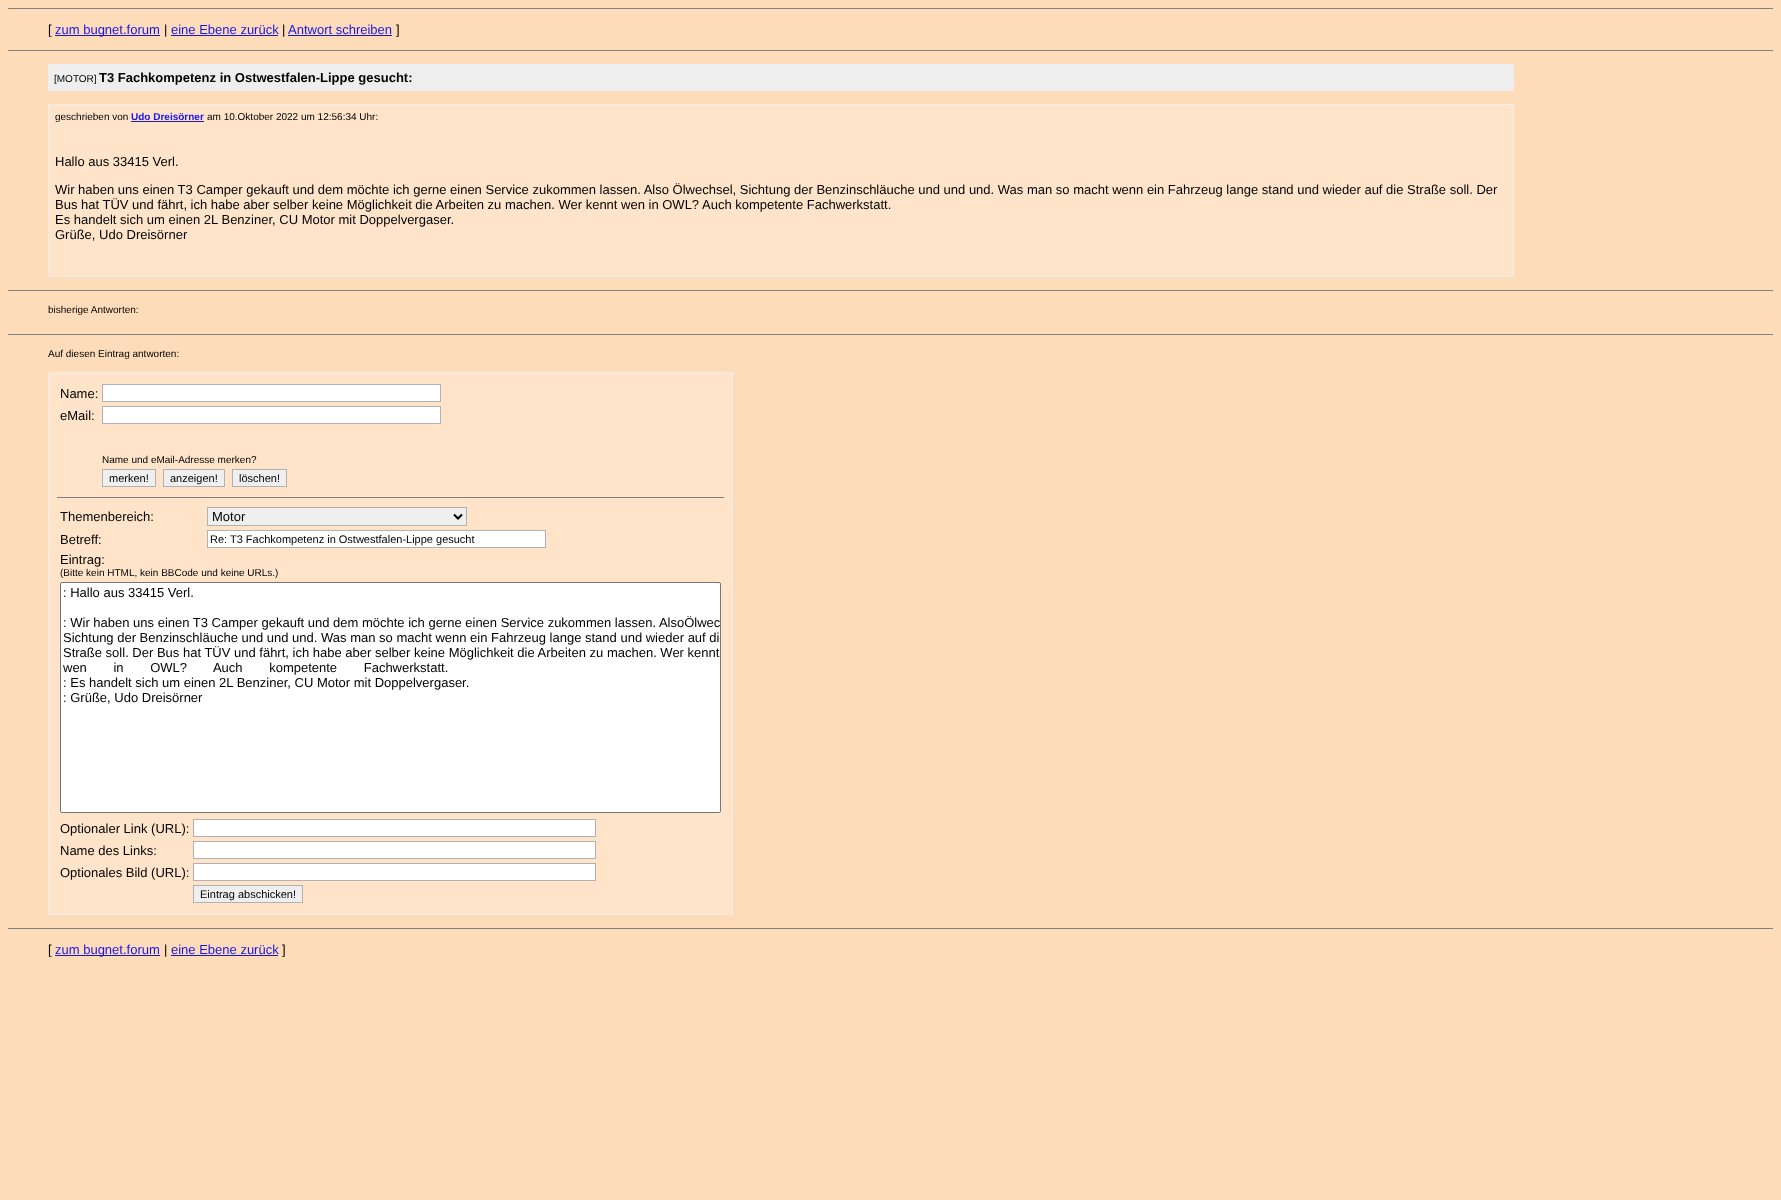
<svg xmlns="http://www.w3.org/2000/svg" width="1781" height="1200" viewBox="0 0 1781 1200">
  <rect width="100%" height="100%" fill="#ffdcb9"/>
  <rect x="8" y="8" width="1765" height="1" fill="#808080"/>
  <text x="48" y="34" font-family="Liberation Sans" font-size="13" fill="#000000">[</text>
  <rect x="55" y="35" width="105" height="1" fill="#1715e8"/>
  <text x="55" y="34" font-family="Liberation Sans" font-size="13" fill="#1715e8">zum bugnet.forum</text>
  <text x="164" y="34" font-family="Liberation Sans" font-size="13" fill="#000000">|</text>
  <text x="171" y="34" font-family="Liberation Sans" font-size="13" fill="#1715e8">eine Ebene zurück</text>
  <rect x="171" y="35" width="107" height="1" fill="#1715e8"/>
  <text x="282" y="34" font-family="Liberation Sans" font-size="13" fill="#000000">|</text>
  <text x="288" y="34" font-family="Liberation Sans" font-size="13" fill="#1715e8">Antwort schreiben</text>
  <rect x="288" y="35" width="104" height="1" fill="#1715e8"/>
  <text x="396" y="34" font-family="Liberation Sans" font-size="13" fill="#000000">]</text>
  <rect x="8" y="50" width="1765" height="1" fill="#808080"/>
  <rect x="48" y="64" width="1466" height="27" fill="#eeeeee"/>
  <text x="54" y="82" font-family="Liberation Sans" font-size="10" fill="#000000">[MOTOR]</text>
  <text x="99" y="82" font-family="Liberation Sans" font-size="13" font-weight="bold" fill="#000000">T3 Fachkompetenz in Ostwestfalen-Lippe gesucht:</text>
  <rect x="48" y="104" width="1466" height="173" fill="#eeeeee"/>
  <rect x="49" y="105" width="1464" height="171" fill="#ffe4ca"/>
  <text x="55" y="120" font-family="Liberation Sans" font-size="10" fill="#000000">geschrieben von</text>
  <text x="131" y="120" font-family="Liberation Sans" font-size="10" font-weight="bold" fill="#1715e8">Udo Dreisörner</text>
  <rect x="131" y="121" width="73" height="1" fill="#1715e8"/>
  <text x="207" y="120" font-family="Liberation Sans" font-size="10" fill="#000000">am 10.Oktober 2022 um 12:56:34 Uhr:</text>
  <text x="55" y="166" font-family="Liberation Sans" font-size="13" fill="#000000">Hallo aus 33415 Verl.</text>
  <text x="55" y="194" font-family="Liberation Sans" font-size="13" fill="#000000">Wir haben uns einen T3 Camper gekauft und dem möchte ich gerne einen Service zukommen lassen. Also Ölwechsel, Sichtung der Benzinschläuche und und und. Was man so macht wenn ein Fahrzeug lange stand und wieder auf die Straße soll. Der</text>
  <text x="55" y="209" font-family="Liberation Sans" font-size="13" fill="#000000">Bus hat TÜV und fährt, ich habe aber selber keine Möglichkeit die Arbeiten zu machen. Wer kennt wen in OWL? Auch kompetente Fachwerkstatt.</text>
  <text x="55" y="224" font-family="Liberation Sans" font-size="13" fill="#000000">Es handelt sich um einen 2L Benziner, CU Motor mit Doppelvergaser.</text>
  <text x="55" y="239" font-family="Liberation Sans" font-size="13" fill="#000000">Grüße, Udo Dreisörner</text>
  <rect x="8" y="290" width="1765" height="1" fill="#808080"/>
  <text x="48" y="313" font-family="Liberation Sans" font-size="10" fill="#000000">bisherige Antworten:</text>
  <rect x="8" y="334" width="1765" height="1" fill="#808080"/>
  <text x="48" y="357" font-family="Liberation Sans" font-size="10" fill="#000000">Auf diesen Eintrag antworten:</text>
  <rect x="48" y="372" width="685" height="543" fill="#eeeeee"/>
  <rect x="49" y="373" width="683" height="541" fill="#ffe4ca"/>
  <text x="60" y="398" font-family="Liberation Sans" font-size="13" fill="#000000">Name:</text>
  <rect x="102.5" y="384.5" width="338" height="17" fill="#ffffff" stroke="#b1b1b1"/>
  <text x="60" y="420" font-family="Liberation Sans" font-size="13" fill="#000000">eMail:</text>
  <rect x="102.5" y="406.5" width="338" height="17" fill="#ffffff" stroke="#b1b1b1"/>
  <text x="102" y="463" font-family="Liberation Sans" font-size="10" fill="#000000">Name und eMail-Adresse merken?</text>
  <rect x="102.5" y="469.5" width="53" height="17" fill="#efefef" stroke="#b1b1b1"/>
  <text x="109" y="482" font-family="Liberation Sans" font-size="11" fill="#000000">merken!</text>
  <rect x="163.5" y="469.5" width="61" height="17" fill="#efefef" stroke="#b1b1b1"/>
  <text x="170" y="482" font-family="Liberation Sans" font-size="11" fill="#000000">anzeigen!</text>
  <rect x="232.5" y="469.5" width="54" height="17" fill="#efefef" stroke="#b1b1b1"/>
  <text x="239" y="482" font-family="Liberation Sans" font-size="11" fill="#000000">löschen!</text>
  <rect x="57" y="497" width="667" height="1" fill="#808080"/>
  <text x="60" y="521" font-family="Liberation Sans" font-size="13" fill="#000000">Themenbereich:</text>
  <rect x="207.5" y="507.5" width="259" height="18" fill="#efefef" stroke="#b1b1b1"/>
  <path d="M454 514.5L458 518.5L462 514.5" fill="none" stroke="#000000" stroke-width="2"/>
  <text x="212" y="521" font-family="Liberation Sans" font-size="13" fill="#000000">Motor</text>
  <text x="60" y="544" font-family="Liberation Sans" font-size="13" fill="#000000">Betreff:</text>
  <rect x="207.5" y="530.5" width="338" height="17" fill="#ffffff" stroke="#b1b1b1"/>
  <text x="210" y="543" font-family="Liberation Sans" font-size="11" fill="#000000">Re: T3 Fachkompetenz in Ostwestfalen-Lippe gesucht</text>
  <text x="60" y="564" font-family="Liberation Sans" font-size="13" fill="#000000">Eintrag:</text>
  <text x="60" y="576" font-family="Liberation Sans" font-size="10" fill="#000000">(Bitte kein HTML, kein BBCode und keine URLs.)</text>
  <rect x="60.5" y="582.5" width="660" height="230" rx="1.5" fill="#ffffff" stroke="#767676"/>
  <text x="63" y="597" font-family="Liberation Sans" font-size="13" fill="#000000">: Hallo aus 33415 Verl.</text>
  <text x="63" y="627" font-family="Liberation Sans" font-size="13" fill="#000000">: Wir haben uns einen T3 Camper gekauft und dem möchte ich gerne einen Service zukommen lassen. AlsoÖlwec</text>
  <text x="63" y="642" font-family="Liberation Sans" font-size="13" fill="#000000">Sichtung der Benzinschläuche und und und. Was man so macht wenn ein Fahrzeug lange stand und wieder auf di</text>
  <text x="63" y="657" font-family="Liberation Sans" font-size="13" fill="#000000">Straße soll. Der Bus hat TÜV und fährt, ich habe aber selber keine Möglichkeit die Arbeiten zu machen. Wer kennt</text>
  <text x="63" y="672" word-spacing="23" font-family="Liberation Sans" font-size="13" fill="#000000">wen in OWL? Auch kompetente Fachwerkstatt.</text>
  <text x="63" y="687" font-family="Liberation Sans" font-size="13" fill="#000000">: Es handelt sich um einen 2L Benziner, CU Motor mit Doppelvergaser.</text>
  <text x="63" y="702" font-family="Liberation Sans" font-size="13" fill="#000000">: Grüße, Udo Dreisörner</text>
  <text x="60" y="833" font-family="Liberation Sans" font-size="13" fill="#000000">Optionaler Link (URL):</text>
  <rect x="193.5" y="819.5" width="402" height="17" fill="#ffffff" stroke="#b1b1b1"/>
  <text x="60" y="855" font-family="Liberation Sans" font-size="13" fill="#000000">Name des Links:</text>
  <rect x="193.5" y="841.5" width="402" height="17" fill="#ffffff" stroke="#b1b1b1"/>
  <text x="60" y="877" font-family="Liberation Sans" font-size="13" fill="#000000">Optionales Bild (URL):</text>
  <rect x="193.5" y="863.5" width="402" height="17" fill="#ffffff" stroke="#b1b1b1"/>
  <rect x="193.5" y="885.5" width="109" height="17" fill="#efefef" stroke="#b1b1b1"/>
  <text x="200" y="898" font-family="Liberation Sans" font-size="11" fill="#000000">Eintrag abschicken!</text>
  <rect x="8" y="928" width="1765" height="1" fill="#808080"/>
  <text x="48" y="954" font-family="Liberation Sans" font-size="13" fill="#000000">[</text>
  <rect x="55" y="955" width="105" height="1" fill="#1715e8"/>
  <text x="55" y="954" font-family="Liberation Sans" font-size="13" fill="#1715e8">zum bugnet.forum</text>
  <text x="164" y="954" font-family="Liberation Sans" font-size="13" fill="#000000">|</text>
  <text x="171" y="954" font-family="Liberation Sans" font-size="13" fill="#1715e8">eine Ebene zurück</text>
  <rect x="171" y="955" width="107" height="1" fill="#1715e8"/>
  <text x="282" y="954" font-family="Liberation Sans" font-size="13" fill="#000000">]</text>
</svg>
